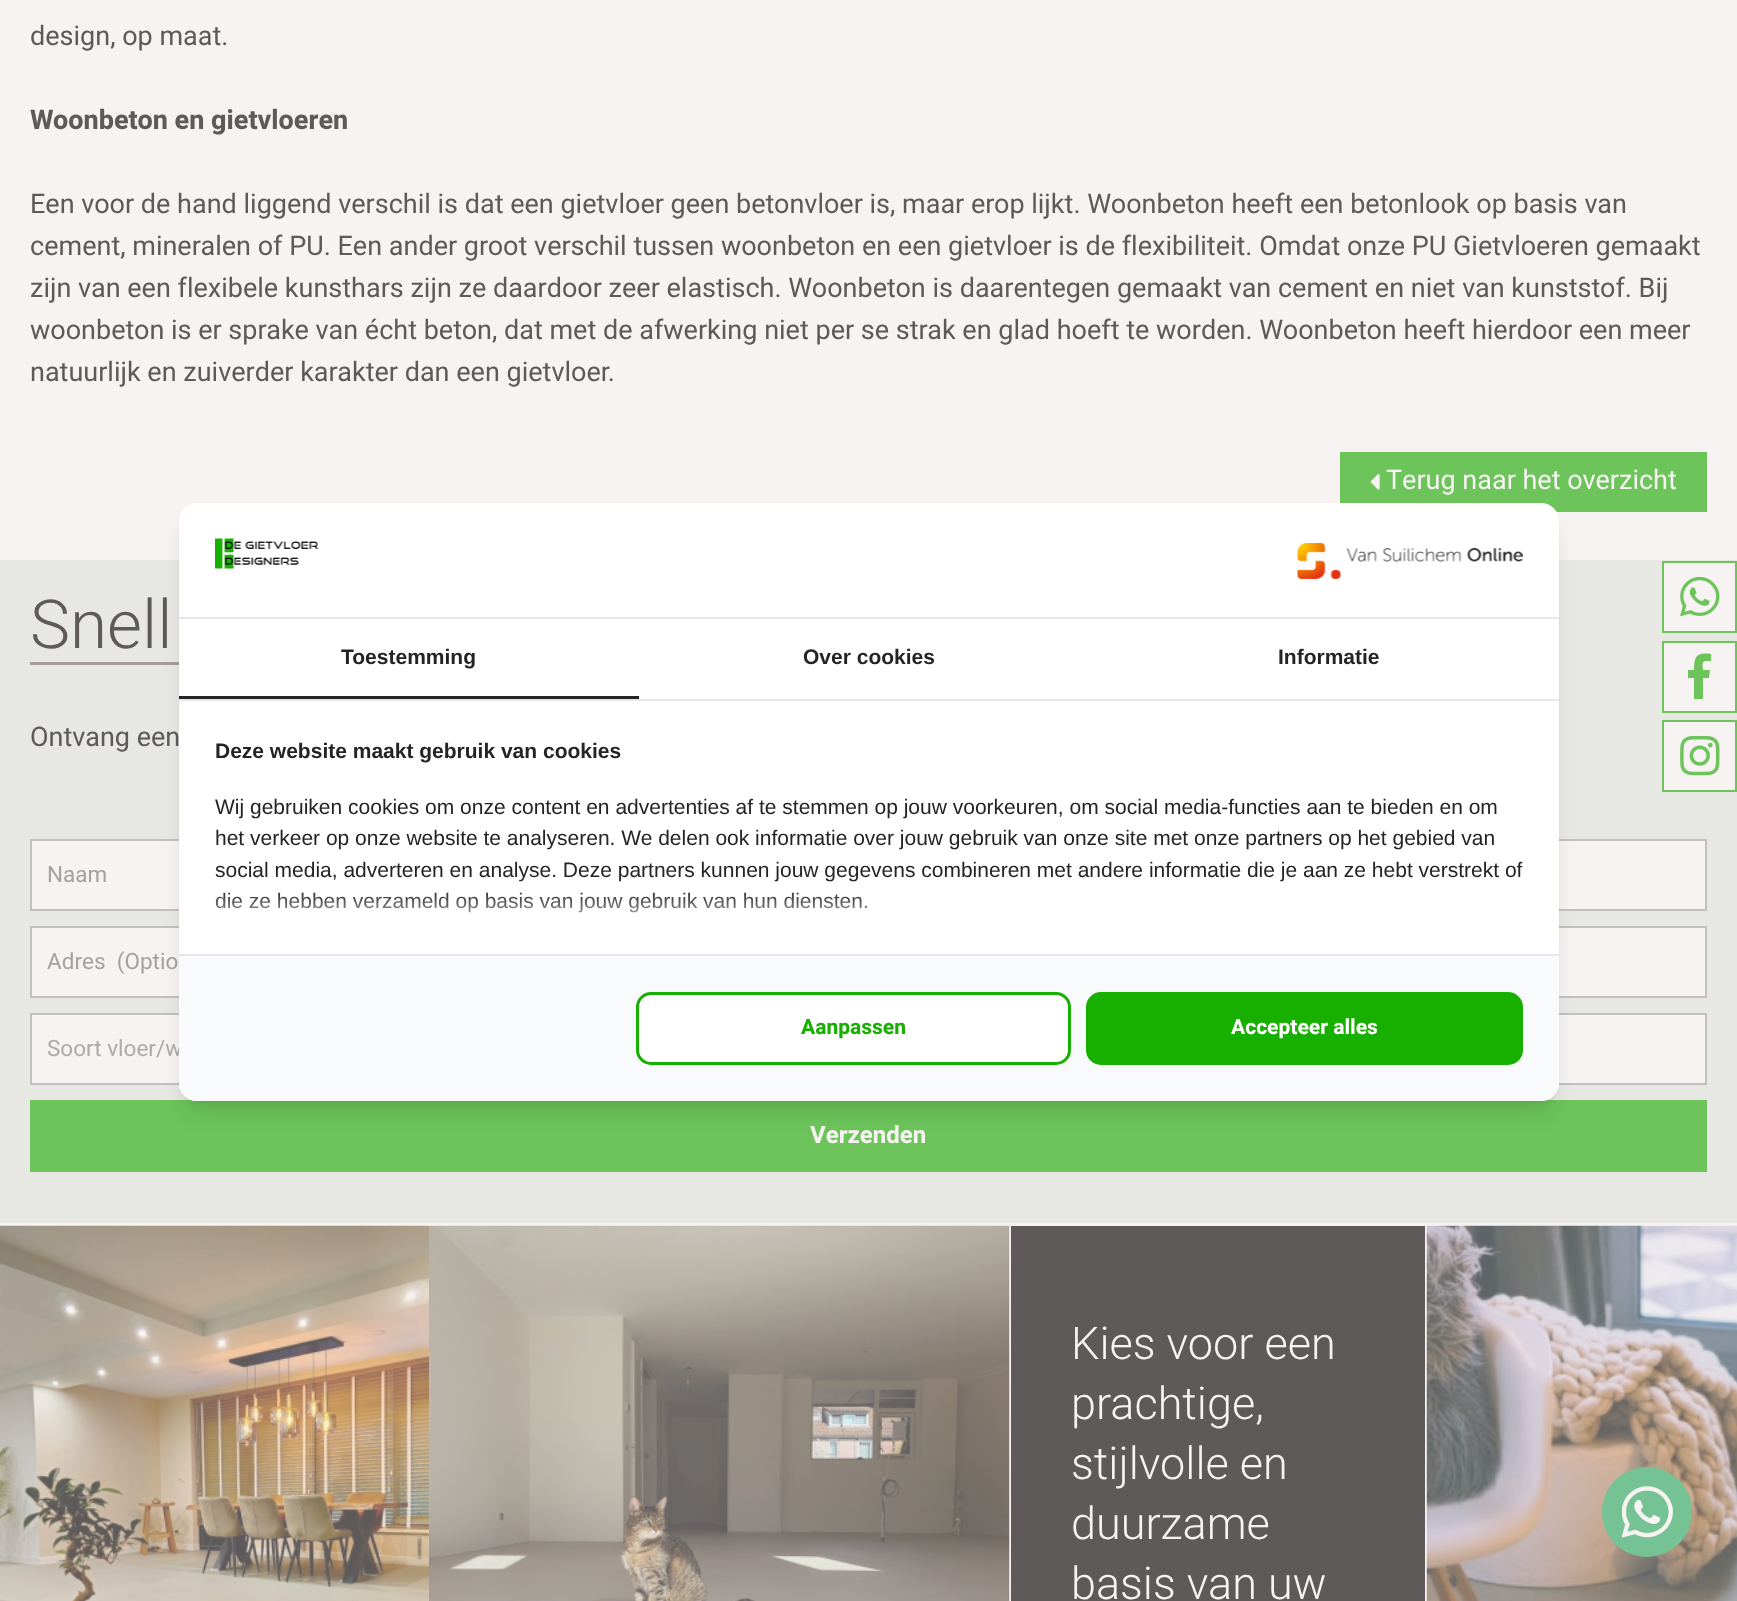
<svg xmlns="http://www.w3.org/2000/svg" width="1737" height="1601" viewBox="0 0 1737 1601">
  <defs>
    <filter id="blur1" x="-50%" y="-200%" width="200%" height="500%"><feGaussianBlur stdDeviation="4.5"/></filter>
    <filter id="blur2" x="-50%" y="-200%" width="200%" height="500%"><feGaussianBlur stdDeviation="11"/></filter>
    <clipPath id="clip1"><rect x="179" y="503" width="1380" height="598" rx="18"/></clipPath>
    <filter id="blur3" x="-50%" y="-200%" width="200%" height="500%"><feGaussianBlur stdDeviation="15"/></filter>
  </defs>
  <rect width="100%" height="100%" fill="#f7f3f3"/>
  <text x="30" y="45" font-family="Heebo" font-size="27" fill="#5e5a5a">design, op maat.</text>
  <text x="30" y="129" font-family="Heebo" font-size="27" font-weight="bold" fill="#5e5a5a">Woonbeton en gietvloeren</text>
  <text x="30" y="213" font-family="Heebo" font-size="27" fill="#5e5a5a">Een voor de hand liggend verschil is dat een gietvloer geen betonvloer is, maar erop lijkt. Woonbeton heeft een betonlook op basis van</text>
  <text x="30" y="255" font-family="Heebo" font-size="27" fill="#5e5a5a">cement, mineralen of PU. Een ander groot verschil tussen woonbeton en een gietvloer is de flexibiliteit. Omdat onze PU Gietvloeren gemaakt</text>
  <text x="30" y="297" font-family="Heebo" font-size="27" fill="#5e5a5a">zijn van een flexibele kunsthars zijn ze daardoor zeer elastisch. Woonbeton is daarentegen gemaakt van cement en niet van kunststof. Bij</text>
  <text x="30" y="339" font-family="Heebo" font-size="27" fill="#5e5a5a">woonbeton is er sprake van écht beton, dat met de afwerking niet per se strak en glad hoeft te worden. Woonbeton heeft hierdoor een meer</text>
  <text x="30" y="381" font-family="Heebo" font-size="27" fill="#5e5a5a">natuurlijk en zuiverder karakter dan een gietvloer.</text>
  <rect x="1340" y="452" width="367" height="60" fill="#6cc45a"/>
  <image x="1370" y="474" width="10" height="16" href="img1.png"/>
  <text x="1386" y="489" font-family="Heebo" font-size="27" fill="#f7f3f3">Terug naar het overzicht</text>
  <rect x="0" y="560" width="1737" height="663" fill="#e7e7e3"/>
  <text x="30" y="648" font-family="Heebo" font-size="67.5" font-weight="300" fill="#5e5a5a">Snell</text>
  <rect x="30" y="662" width="150" height="3" fill="#a29d9a"/>
  <text x="30" y="746" font-family="Heebo" font-size="27" fill="#5e5a5a">Ontvang een</text>
  <rect x="32" y="841" width="147" height="68" fill="#f7f3f3"/>
  <rect x="31" y="840" width="522" height="70" fill="none" stroke="#c4c0c0" stroke-width="2"/>
  <text x="47" y="882" font-family="Heebo" font-size="22.5" fill="#a4a1a1">Naam</text>
  <rect x="1559" y="841" width="146" height="68" fill="#f7f3f3"/>
  <rect x="1185" y="840" width="521" height="70" fill="none" stroke="#c4c0c0" stroke-width="2"/>
  <rect x="32" y="928" width="147" height="68" fill="#f7f3f3"/>
  <rect x="31" y="927" width="522" height="70" fill="none" stroke="#c4c0c0" stroke-width="2"/>
  <text x="47" y="969" font-family="Heebo" font-size="22.5" fill="#a4a1a1" xml:space="preserve">Adres  (Optio</text>
  <rect x="1559" y="928" width="146" height="68" fill="#f7f3f3"/>
  <rect x="1185" y="927" width="521" height="70" fill="none" stroke="#c4c0c0" stroke-width="2"/>
  <rect x="32" y="1015" width="147" height="68" fill="#f7f3f3"/>
  <rect x="31" y="1014" width="522" height="70" fill="none" stroke="#c4c0c0" stroke-width="2"/>
  <text x="47" y="1056" font-family="Heebo" font-size="22.5" fill="#adaaaa">Soort vloer/w</text>
  <rect x="1559" y="1015" width="146" height="68" fill="#f7f3f3"/>
  <rect x="1185" y="1014" width="521" height="70" fill="none" stroke="#c4c0c0" stroke-width="2"/>
  <rect x="30" y="1100" width="1677" height="72" fill="#6cc45a"/>
  <text x="810" y="1143" font-family="Heebo" font-size="24" font-weight="bold" fill="#f7f3f3">Verzenden</text>
  <rect x="1663" y="562" width="73" height="70" fill="#f7f3f3" stroke="#6cc45a" stroke-width="2"/>
  <image x="1680" y="576" width="40" height="41" href="img2.png"/>
  <rect x="1663" y="642" width="73" height="70" fill="#f7f3f3" stroke="#6cc45a" stroke-width="2"/>
  <path d="M1706 661C1701 661 1703 667 1703 670H1710L1709 678H1703V699H1694V678H1688V670H1694C1694 657 1696 652 1711 654V661Z" fill="#6cc45a"/>
  <rect x="1663" y="721" width="73" height="70" fill="#f7f3f3" stroke="#6cc45a" stroke-width="2"/>
  <image x="1680" y="735" width="40" height="41" href="img3.png"/>
  <image x="0" y="1225" width="429" height="376" href="img4.png"/>
  <image x="429" y="1225" width="581" height="376" href="img5.png"/>
  <rect x="1011" y="1226" width="414" height="375" fill="#5e5a5a"/>
  <text x="1071" y="1359" font-family="Heebo" font-size="45" font-weight="300" fill="#f7f3f3">Kies voor een</text>
  <text x="1071" y="1419" font-family="Heebo" font-size="45" font-weight="300" fill="#f7f3f3">prachtige,</text>
  <text x="1071" y="1479" font-family="Heebo" font-size="45" font-weight="300" fill="#f7f3f3">stijlvolle en</text>
  <text x="1071" y="1539" font-family="Heebo" font-size="45" font-weight="300" fill="#f7f3f3">duurzame</text>
  <text x="1071" y="1599" font-family="Heebo" font-size="45" font-weight="300" fill="#f7f3f3">basis van uw</text>
  <image x="1426" y="1225" width="311" height="376" href="img6.png"/>
  <circle cx="1647" cy="1512" r="45" fill="#75c394"/>
  <image x="1622" y="1486" width="51" height="52" href="img7.png"/>
  <rect x="185" y="515" width="1368" height="586" rx="12" fill="#000000" fill-opacity="0.1" filter="url(#blur1)"/>
  <rect x="183" y="522" width="1371" height="590" rx="14" fill="#000000" fill-opacity="0.1" filter="url(#blur2)"/>
  <rect x="179" y="503" width="1380" height="598" rx="18" fill="#ffffff"/>
  <rect x="179" y="617" width="1380" height="2" fill="#e5e7eb"/>
  <image x="215" y="538" width="104" height="31" href="img8.png"/>
  <image x="1297" y="543" width="226" height="36" href="img9.png"/>
  <rect x="179" y="699" width="1380" height="2" fill="#e5e7eb"/>
  <rect x="179" y="696" width="460" height="3" fill="#242424"/>
  <text x="341" y="664" font-family="Liberation Sans" font-size="21" font-weight="bold" fill="#242424">Toestemming</text>
  <text x="803" y="664" font-family="Liberation Sans" font-size="21" font-weight="bold" fill="#242424">Over cookies</text>
  <text x="1278" y="664" font-family="Liberation Sans" font-size="21" font-weight="bold" fill="#242424">Informatie</text>
  <text x="215" y="758" font-family="Liberation Sans" font-size="21" font-weight="bold" fill="#242424">Deze website maakt gebruik van cookies</text>
  <text x="215" y="814" font-family="Liberation Sans" font-size="21" fill="#242424">Wij gebruiken cookies om onze content en advertenties af te stemmen op jouw voorkeuren, om social media-functies aan te bieden en om</text>
  <text x="215" y="845" font-family="Liberation Sans" font-size="21" fill="#242424">het verkeer op onze website te analyseren. We delen ook informatie over jouw gebruik van onze site met onze partners op het gebied van</text>
  <text x="215" y="877" font-family="Liberation Sans" font-size="21" fill="#242424">social media, adverteren en analyse. Deze partners kunnen jouw gegevens combineren met andere informatie die je aan ze hebt verstrekt of</text>
  <text x="215" y="908" font-family="Liberation Sans" font-size="21" fill="#242424">die ze hebben verzameld op basis van jouw gebruik van hun diensten.</text>
  <g clip-path="url(#clip1)">
    <rect x="167" y="912" width="1404" height="171" fill="#ffffff" filter="url(#blur3)"/>
  </g>
  <path d="M179 954H1559V1083C1559 1093 1551 1101 1541 1101H197C187 1101 179 1093 179 1083Z" fill="#f9fafb"/>
  <rect x="179" y="954" width="1380" height="2" fill="#e5e7eb"/>
  <rect x="637.5" y="993.5" width="432" height="70" rx="13.5" fill="#ffffff" stroke="#17b000" stroke-width="3"/>
  <text x="801" y="1034" font-family="Heebo" font-size="21" font-weight="bold" fill="#17b000">Aanpassen</text>
  <rect x="1087.5" y="993.5" width="434" height="70" rx="13.5" fill="#17b000" stroke="#17b000" stroke-width="3"/>
  <text x="1231" y="1034" font-family="Heebo" font-size="21" font-weight="bold" fill="#ffffff">Accepteer alles</text>
</svg>
